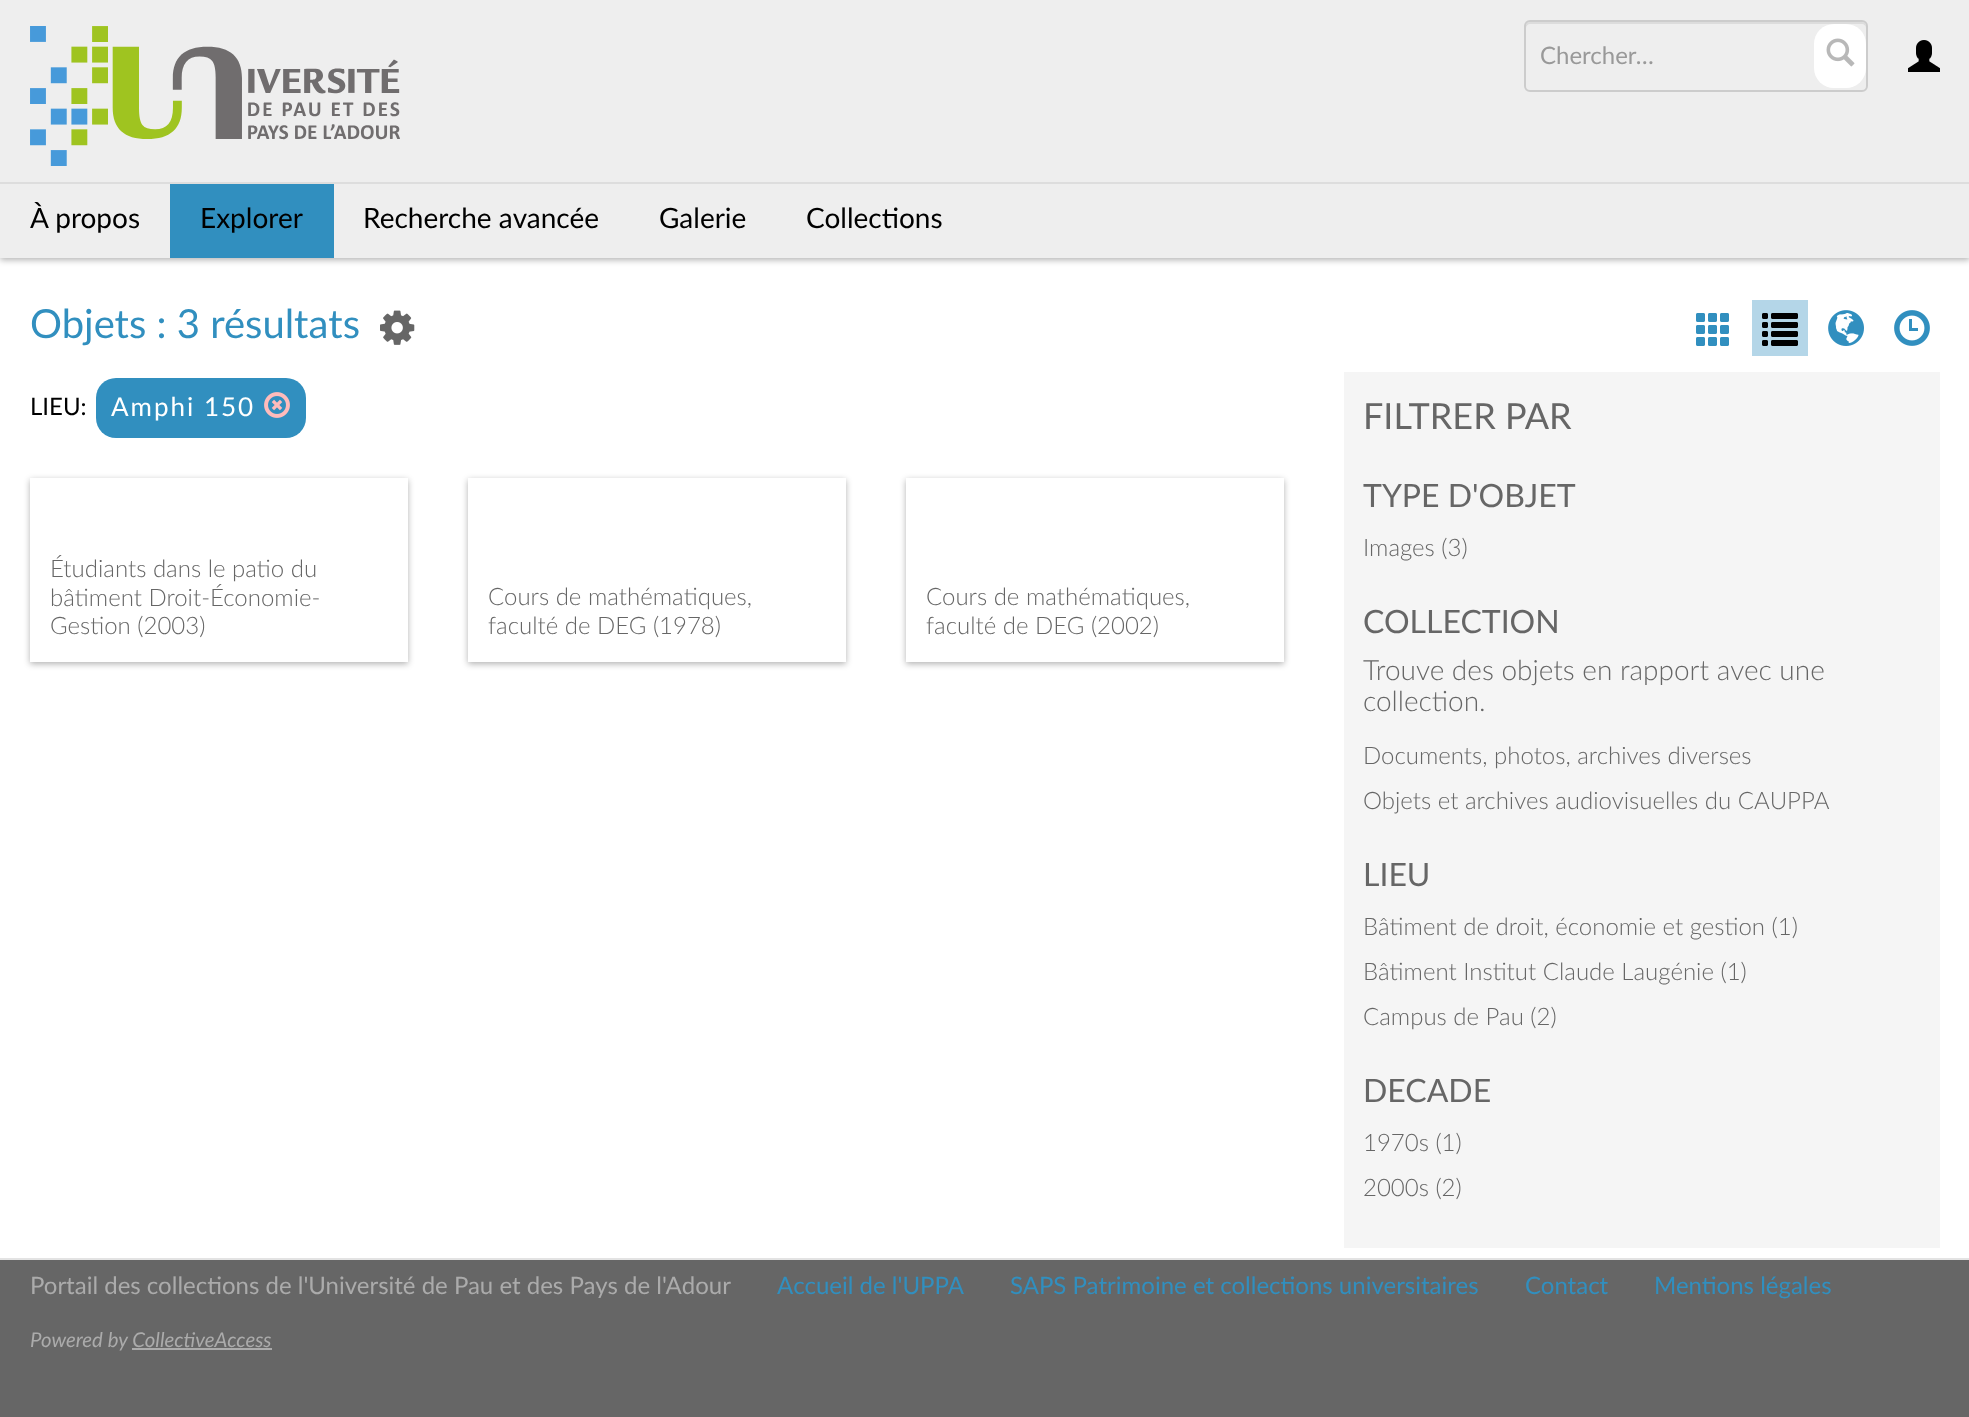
<svg xmlns="http://www.w3.org/2000/svg" width="1969" height="1417" viewBox="0 0 1969 1417">
  <defs>
    <filter id="blur1" x="-50%" y="-200%" width="200%" height="500%"><feGaussianBlur stdDeviation="3"/></filter>
    <clipPath id="clip1"><path d="M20 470H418V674H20ZM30 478H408V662H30Z" clip-rule="evenodd"/></clipPath>
    <clipPath id="clip2"><path d="M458 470H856V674H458ZM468 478H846V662H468Z" clip-rule="evenodd"/></clipPath>
    <clipPath id="clip3"><path d="M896 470H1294V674H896ZM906 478H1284V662H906Z" clip-rule="evenodd"/></clipPath>
  </defs>
  <rect width="100%" height="100%" fill="#ffffff"/>
  <rect x="0" y="2" width="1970" height="258" fill="#000000" fill-opacity="0.3" filter="url(#blur1)"/>
  <rect x="0" y="0" width="1969" height="258" fill="#eeeeee"/>
  <image x="30" y="26" width="370" height="140" href="img1.png"/>
  <path d="M1530 24H1862C1864 24 1866 26 1866 28C1866 25 1866 22 1862 22H1530C1526 22 1526 25 1526 28C1526 26 1528 24 1530 24Z" fill="#dcdcdc"/>
  <rect x="1525" y="21" width="342" height="70" rx="5" fill="none" stroke="#cccccc" stroke-width="2"/>
  <text x="1540" y="64" font-family="Lato" font-size="24" fill="#999999">Chercher…</text>
  <rect x="1814" y="24" width="52" height="64" rx="20" fill="#ffffff"/>
  <image x="1826" y="38" width="29" height="29" href="img2.png"/>
  <image x="1908" y="40" width="32" height="32" href="img3.png"/>
  <rect x="0" y="182" width="1969" height="2" fill="#dddddd"/>
  <text x="30" y="228" font-family="Lato" font-size="28" fill="#000000">À propos</text>
  <rect x="170" y="184" width="164" height="74" fill="#318fbf"/>
  <text x="200" y="228" font-family="Lato" font-size="28" fill="#000000">Explorer</text>
  <text x="363" y="228" font-family="Lato" font-size="28" fill="#000000">Recherche avancée</text>
  <text x="659" y="228" font-family="Lato" font-size="28" fill="#000000">Galerie</text>
  <text x="806" y="228" font-family="Lato" font-size="28" fill="#000000">Collections</text>
  <text x="30" y="338" font-family="Lato" font-size="40" fill="#318fbf">Objets : 3 résultats</text>
  <image x="380" y="310" width="35" height="35" href="img4.png"/>
  <text x="30" y="415" font-family="Lato" font-size="24" fill="#000000">LIEU:</text>
  <rect x="96" y="378" width="210" height="60" rx="20" fill="#318fbf"/>
  <text x="111" y="416" font-family="Lato" font-size="26" letter-spacing="2" fill="#ffffff">Amphi 150</text>
  <image x="264" y="392" width="26" height="26" href="img5.png"/>
  <g clip-path="url(#clip1)">
    <rect x="30" y="480" width="378" height="184" fill="#000000" fill-opacity="0.3" filter="url(#blur1)"/>
  </g>
  <text x="50" y="577" font-family="Lato" font-size="24" font-weight="300" fill="#666666">Étudiants dans le patio du</text>
  <text x="50" y="606" font-family="Lato" font-size="24" font-weight="300" fill="#666666">bâtiment Droit-Économie-</text>
  <text x="50" y="634" font-family="Lato" font-size="24" font-weight="300" fill="#666666">Gestion (2003)</text>
  <g clip-path="url(#clip2)">
    <rect x="468" y="480" width="378" height="184" fill="#000000" fill-opacity="0.3" filter="url(#blur1)"/>
  </g>
  <text x="488" y="605" font-family="Lato" font-size="24" font-weight="300" fill="#666666">Cours de mathématiques,</text>
  <text x="488" y="634" font-family="Lato" font-size="24" font-weight="300" fill="#666666">faculté de DEG (1978)</text>
  <g clip-path="url(#clip3)">
    <rect x="906" y="480" width="378" height="184" fill="#000000" fill-opacity="0.3" filter="url(#blur1)"/>
  </g>
  <text x="926" y="605" font-family="Lato" font-size="24" font-weight="300" fill="#666666">Cours de mathématiques,</text>
  <text x="926" y="634" font-family="Lato" font-size="24" font-weight="300" fill="#666666">faculté de DEG (2002)</text>
  <image x="1696" y="313" width="33" height="33" href="img6.png"/>
  <rect x="1752" y="300" width="56" height="56" fill="#b4d6e8"/>
  <image x="1762" y="313" width="36" height="33" href="img7.png"/>
  <image x="1828" y="310" width="36" height="36" href="img8.png"/>
  <image x="1894" y="310" width="36" height="36" href="img9.png"/>
  <rect x="1344" y="372" width="596" height="876" fill="#f5f5f5"/>
  <text x="1363" y="429" font-family="Lato" font-size="36" fill="#666666">FILTRER PAR</text>
  <text x="1363" y="507" font-family="Lato" font-size="32" fill="#666666">TYPE D'OBJET</text>
  <text x="1363" y="556" font-family="Lato" font-size="24" font-weight="300" fill="#666666">Images (3)</text>
  <text x="1363" y="633" font-family="Lato" font-size="32" fill="#666666">COLLECTION</text>
  <text x="1363" y="680" font-family="Lato" font-size="28" font-weight="300" fill="#666666">Trouve des objets en rapport avec une</text>
  <text x="1363" y="711" font-family="Lato" font-size="28" font-weight="300" fill="#666666">collection.</text>
  <text x="1363" y="764" font-family="Lato" font-size="24" font-weight="300" fill="#666666">Documents, photos, archives diverses</text>
  <text x="1363" y="809" font-family="Lato" font-size="24" font-weight="300" fill="#666666">Objets et archives audiovisuelles du CAUPPA</text>
  <text x="1363" y="886" font-family="Lato" font-size="32" fill="#666666">LIEU</text>
  <text x="1363" y="935" font-family="Lato" font-size="24" font-weight="300" fill="#666666">Bâtiment de droit, économie et gestion (1)</text>
  <text x="1363" y="980" font-family="Lato" font-size="24" font-weight="300" fill="#666666">Bâtiment Institut Claude Laugénie (1)</text>
  <text x="1363" y="1025" font-family="Lato" font-size="24" font-weight="300" fill="#666666">Campus de Pau (2)</text>
  <text x="1363" y="1102" font-family="Lato" font-size="32" fill="#666666">DECADE</text>
  <text x="1363" y="1151" font-family="Lato" font-size="24" font-weight="300" fill="#666666">1970s (1)</text>
  <text x="1363" y="1196" font-family="Lato" font-size="24" font-weight="300" fill="#666666">2000s (2)</text>
  <rect x="0" y="1260" width="1969" height="157" fill="#666666"/>
  <rect x="0" y="1258" width="1969" height="2" fill="#e3e3e3"/>
  <text x="30" y="1294" font-family="Lato" font-size="24" fill="#ababab">Portail des collections de l'Université de Pau et des Pays de l'Adour</text>
  <text x="777" y="1294" font-family="Lato" font-size="24" fill="#318fbf">Accueil de l'UPPA</text>
  <text x="1010" y="1294" font-family="Lato" font-size="24" fill="#318fbf">SAPS Patrimoine et collections universitaires</text>
  <text x="1525" y="1294" font-family="Lato" font-size="24" fill="#318fbf">Contact</text>
  <text x="1654" y="1294" font-family="Lato" font-size="24" fill="#318fbf">Mentions légales</text>
  <text x="30" y="1347" font-family="Lato" font-size="20.4" font-style="italic" fill="#ababab">Powered by CollectiveAccess</text>
  <rect x="132" y="1348" width="140" height="2" fill="#ababab"/>
</svg>
